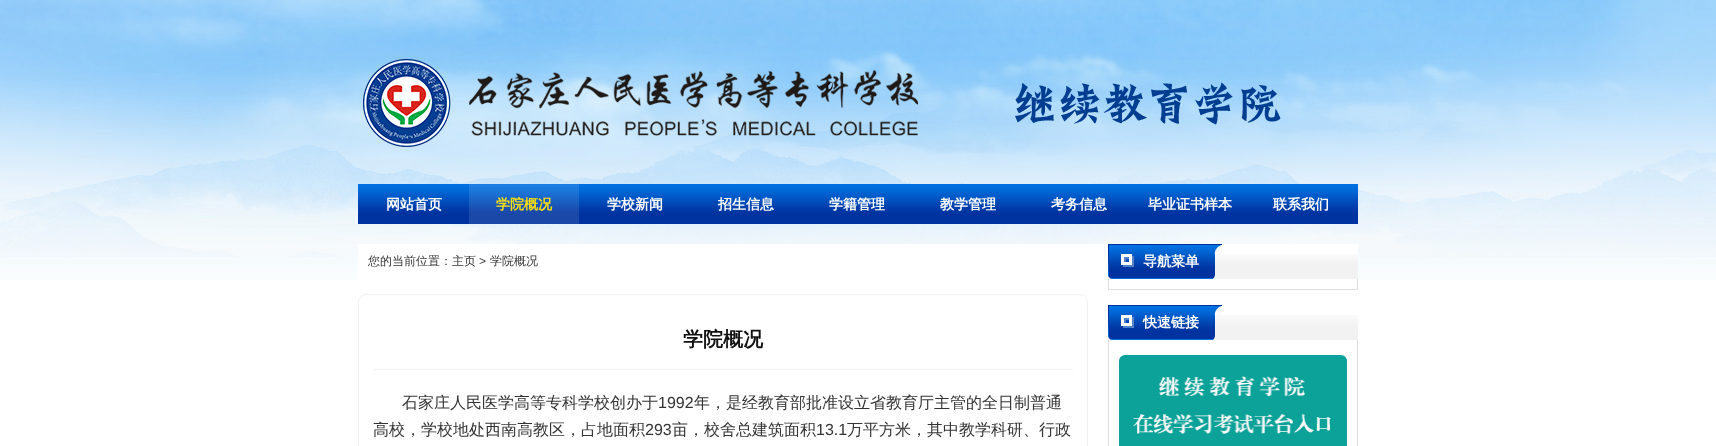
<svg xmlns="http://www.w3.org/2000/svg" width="1716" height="446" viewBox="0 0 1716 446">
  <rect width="100%" height="100%" fill="#ffffff"/>
  <image x="0" y="179" width="1716" height="101" href="img1.png"/>
  <image x="0" y="0" width="1716" height="257" href="img2.png"/>
  <image x="363" y="59" width="918" height="88" href="img3.png"/>
  <image x="358" y="184" width="1000" height="40" href="img4.png"/>
  <text x="386" y="209" font-family="WenQuanYi Zen Hei" font-size="14" font-weight="bold" fill="#ffffff">网站首页</text>
  <image x="469" y="184" width="110" height="40" href="img5.png"/>
  <text x="496" y="209" font-family="WenQuanYi Zen Hei" font-size="14" font-weight="bold" fill="#ffe00d">学院概况</text>
  <text x="607" y="209" font-family="WenQuanYi Zen Hei" font-size="14" font-weight="bold" fill="#ffffff">学校新闻</text>
  <text x="718" y="209" font-family="WenQuanYi Zen Hei" font-size="14" font-weight="bold" fill="#ffffff">招生信息</text>
  <text x="829" y="209" font-family="WenQuanYi Zen Hei" font-size="14" font-weight="bold" fill="#ffffff">学籍管理</text>
  <text x="940" y="209" font-family="WenQuanYi Zen Hei" font-size="14" font-weight="bold" fill="#ffffff">教学管理</text>
  <text x="1051" y="209" font-family="WenQuanYi Zen Hei" font-size="14" font-weight="bold" fill="#ffffff">考务信息</text>
  <text x="1148" y="209" font-family="WenQuanYi Zen Hei" font-size="14" font-weight="bold" fill="#ffffff">毕业证书样本</text>
  <text x="1273" y="209" font-family="WenQuanYi Zen Hei" font-size="14" font-weight="bold" fill="#ffffff">联系我们</text>
  <rect x="358" y="244" width="1000" height="36" fill="#ffffff"/>
  <text x="368" y="265" font-family="WenQuanYi Zen Hei" font-size="12" font-weight="500" fill="#333333">您的当前位置：主页</text>
  <text x="479" y="265" font-family="Liberation Sans" font-size="12" fill="#333333">&gt;</text>
  <text x="490" y="265" font-family="WenQuanYi Zen Hei" font-size="12" font-weight="500" fill="#333333">学院概况</text>
  <rect x="358.5" y="294.5" width="729" height="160" rx="7.5" fill="none" stroke="#f1f1f1"/>
  <rect x="373" y="369" width="700" height="1" fill="#f2f2f2"/>
  <text x="683" y="346" font-family="WenQuanYi Zen Hei" font-size="20" font-weight="bold" fill="#111111">学院概况</text>
  <text x="402" y="408" font-family="WenQuanYi Zen Hei" font-size="16" font-weight="500" fill="#333333">石家庄人民医学高等专科学校创办于</text>
  <text x="658" y="408" font-family="Liberation Sans" font-size="16" fill="#333333">1992</text>
  <text x="694" y="408" font-family="WenQuanYi Zen Hei" font-size="16" font-weight="500" fill="#333333">年，是经教育部批准设立省教育厅主管的全日制普通</text>
  <text x="373" y="435" font-family="WenQuanYi Zen Hei" font-size="16" font-weight="500" fill="#333333">高校，学校地处西南高教区，占地面积</text>
  <text x="645" y="435" font-family="Liberation Sans" font-size="16" fill="#333333">293</text>
  <text x="672" y="435" font-family="WenQuanYi Zen Hei" font-size="16" font-weight="500" fill="#333333">亩，校舍总建筑面积</text>
  <text x="816" y="435" font-family="Liberation Sans" font-size="16" fill="#333333">13.1</text>
  <text x="847" y="435" font-family="WenQuanYi Zen Hei" font-size="16" font-weight="500" fill="#333333">万平方米，其中教学科研、行政</text>
  <image x="1222" y="254" width="136" height="25" href="img6.png"/>
  <image x="1108" y="244" width="114" height="35" href="img7.png"/>
  <text x="1143" y="266" font-family="WenQuanYi Zen Hei" font-size="14" font-weight="bold" fill="#ffffff">导航菜单</text>
  <rect x="1357" y="279" width="1" height="11" fill="#dedede"/>
  <rect x="1108" y="289" width="250" height="1" fill="#dedede"/>
  <rect x="1108" y="279" width="1" height="11" fill="#dedede"/>
  <image x="1222" y="315" width="136" height="25" href="img6.png"/>
  <image x="1108" y="305" width="114" height="35" href="img7.png"/>
  <text x="1143" y="327" font-family="WenQuanYi Zen Hei" font-size="14" font-weight="bold" fill="#ffffff">快速链接</text>
  <rect x="1357" y="340" width="1" height="106" fill="#dedede"/>
  <rect x="1108" y="340" width="1" height="106" fill="#dedede"/>
  <image x="1119" y="355" width="228" height="91" href="img8.png"/>
</svg>
